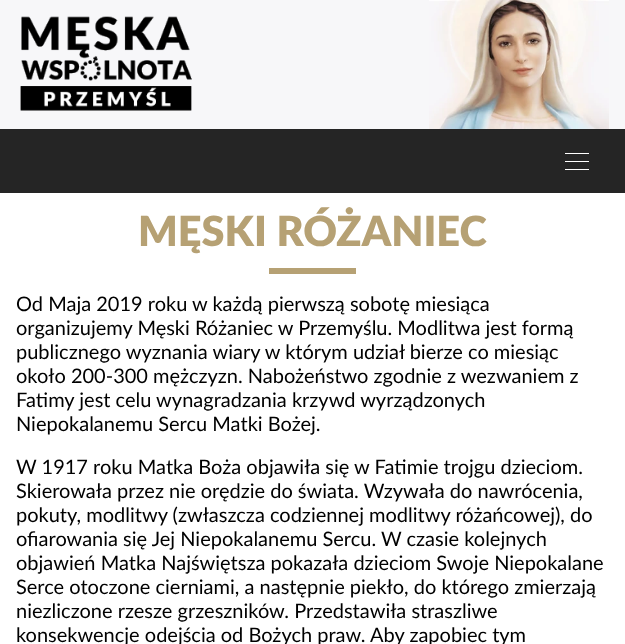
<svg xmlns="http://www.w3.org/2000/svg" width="625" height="644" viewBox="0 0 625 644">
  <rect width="100%" height="100%" fill="#ffffff"/>
  <rect x="0" y="0" width="625" height="129" fill="#f7f7f9"/>
  <image x="20" y="16" width="172" height="95" href="img1.png"/>
  <image x="429" y="0" width="180" height="129" href="img2.png"/>
  <rect x="0" y="129" width="625" height="64" fill="#252525"/>
  <rect x="565" y="153" width="24" height="1" fill="#ffffff"/>
  <rect x="565" y="161" width="24" height="1" fill="#ffffff"/>
  <rect x="565" y="169" width="24" height="1" fill="#ffffff"/>
  <text x="138" y="246" font-family="Lato" font-size="41.5" font-weight="900" fill="#b6a174">MĘSKI RÓŻANIEC</text>
  <rect x="269" y="268" width="87" height="6" fill="#b6a174"/>
  <text x="16" y="311" font-family="Lato" font-size="20" fill="#000000">Od Maja 2019 roku w każdą pierwszą sobotę miesiąca</text>
  <text x="16" y="335" font-family="Lato" font-size="20" fill="#000000">organizujemy Męski Różaniec w Przemyślu. Modlitwa jest formą</text>
  <text x="16" y="359" font-family="Lato" font-size="20" fill="#000000">publicznego wyznania wiary w którym udział bierze co miesiąc</text>
  <text x="16" y="383" font-family="Lato" font-size="20" fill="#000000">około 200-300 mężczyzn. Nabożeństwo zgodnie z wezwaniem z</text>
  <text x="16" y="407" font-family="Lato" font-size="20" fill="#000000">Fatimy jest celu wynagradzania krzywd wyrządzonych</text>
  <text x="16" y="431" font-family="Lato" font-size="20" fill="#000000">Niepokalanemu Sercu Matki Bożej.</text>
  <text x="16" y="474" font-family="Lato" font-size="20" fill="#000000">W 1917 roku Matka Boża objawiła się w Fatimie trojgu dzieciom.</text>
  <text x="16" y="498" font-family="Lato" font-size="20" fill="#000000">Skierowała przez nie orędzie do świata. Wzywała do nawrócenia,</text>
  <text x="16" y="522" font-family="Lato" font-size="20" fill="#000000">pokuty, modlitwy (zwłaszcza codziennej modlitwy różańcowej), do</text>
  <text x="16" y="546" font-family="Lato" font-size="20" fill="#000000">ofiarowania się Jej Niepokalanemu Sercu. W czasie kolejnych</text>
  <text x="16" y="570" font-family="Lato" font-size="20" fill="#000000">objawień Matka Najświętsza pokazała dzieciom Swoje Niepokalane</text>
  <text x="16" y="594" font-family="Lato" font-size="20" fill="#000000">Serce otoczone cierniami, a następnie piekło, do którego zmierzają</text>
  <text x="16" y="618" font-family="Lato" font-size="20" fill="#000000">niezliczone rzesze grzeszników. Przedstawiła straszliwe</text>
  <text x="16" y="642" font-family="Lato" font-size="20" fill="#000000">konsekwencje odejścia od Bożych praw. Aby zapobiec tym</text>
</svg>
